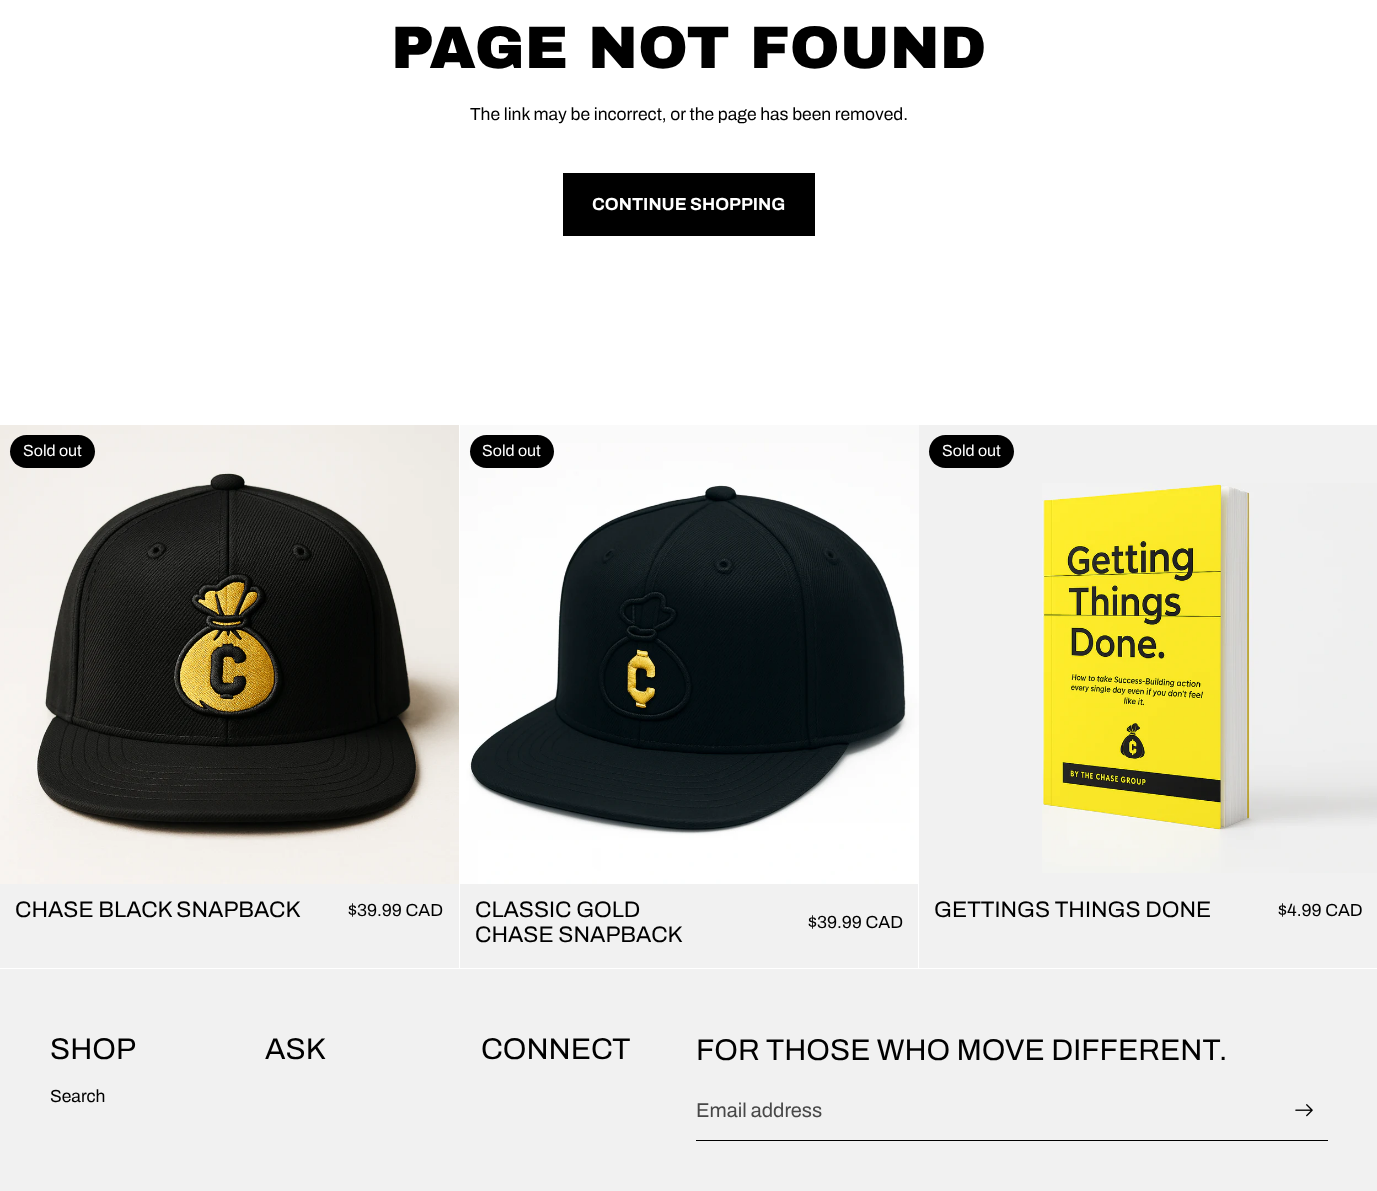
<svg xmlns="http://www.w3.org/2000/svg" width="1377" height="1191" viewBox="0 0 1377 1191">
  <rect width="100%" height="100%" fill="#ffffff"/>
  <text x="391" y="68" font-family="Archivo Black" font-size="60" fill="#000000">PAGE NOT FOUND</text>
  <text x="470" y="120" font-family="Archivo" font-size="17.5" fill="#000000">The link may be incorrect, or the page has been removed.</text>
  <rect x="563" y="173" width="252" height="63" fill="#000000"/>
  <text x="592" y="210" font-family="Archivo" font-size="17.5" font-weight="bold" fill="#ffffff">CONTINUE SHOPPING</text>
  <rect x="0" y="884" width="459" height="84" fill="#f1f1f1"/>
  <image x="0" y="425" width="459" height="459" href="img1.png"/>
  <rect x="10" y="435" width="85" height="33" rx="16.5" fill="#000000"/>
  <text x="23" y="456" font-family="Archivo" font-size="16" fill="#ffffff">Sold out</text>
  <text x="15" y="917" font-family="Archivo" font-size="22.5" fill="#000000">CHASE BLACK SNAPBACK</text>
  <text x="348" y="916" font-family="Archivo" font-size="17.5" fill="#000000">$39.99 CAD</text>
  <rect x="460" y="884" width="458" height="84" fill="#f1f1f1"/>
  <image x="460" y="425" width="459" height="459" href="img2.png"/>
  <rect x="470" y="435" width="84" height="33" rx="16.5" fill="#000000"/>
  <text x="482" y="456" font-family="Archivo" font-size="16" fill="#ffffff">Sold out</text>
  <text x="475" y="917" font-family="Archivo" font-size="22.5" fill="#000000">CLASSIC GOLD</text>
  <text x="475" y="942" font-family="Archivo" font-size="22.5" fill="#000000">CHASE SNAPBACK</text>
  <text x="808" y="928" font-family="Archivo" font-size="17.5" fill="#000000">$39.99 CAD</text>
  <rect x="919" y="425" width="458" height="543" fill="#f1f1f1"/>
  <rect x="929" y="435" width="85" height="33" rx="16.5" fill="#000000"/>
  <text x="942" y="456" font-family="Archivo" font-size="16" fill="#ffffff">Sold out</text>
  <image x="1042" y="483" width="335" height="390" href="img3.png"/>
  <text x="934" y="917" font-family="Archivo" font-size="22.5" fill="#000000">GETTINGS THINGS DONE</text>
  <text x="1278" y="916" font-family="Archivo" font-size="17.5" fill="#000000">$4.99 CAD</text>
  <rect x="0" y="969" width="1377" height="222" fill="#f1f1f1"/>
  <text x="50" y="1059" font-family="Archivo" font-size="30" fill="#000000">SHOP</text>
  <text x="50" y="1102" font-family="Archivo" font-size="17.5" fill="#000000">Search</text>
  <text x="265" y="1059" font-family="Archivo" font-size="30" fill="#000000">ASK</text>
  <text x="481" y="1059" font-family="Archivo" font-size="30" fill="#000000">CONNECT</text>
  <text x="696" y="1060" font-family="Archivo" font-size="30" fill="#000000">FOR THOSE WHO MOVE DIFFERENT.</text>
  <path d="M696 1084V1141H1328V1084V1140H696Z" fill="#000000"/>
  <text x="696" y="1117" font-family="Archivo" font-size="20" fill="#484848">Email address</text>
  <image x="1295" y="1104" width="18" height="13" href="img4.png"/>
</svg>
